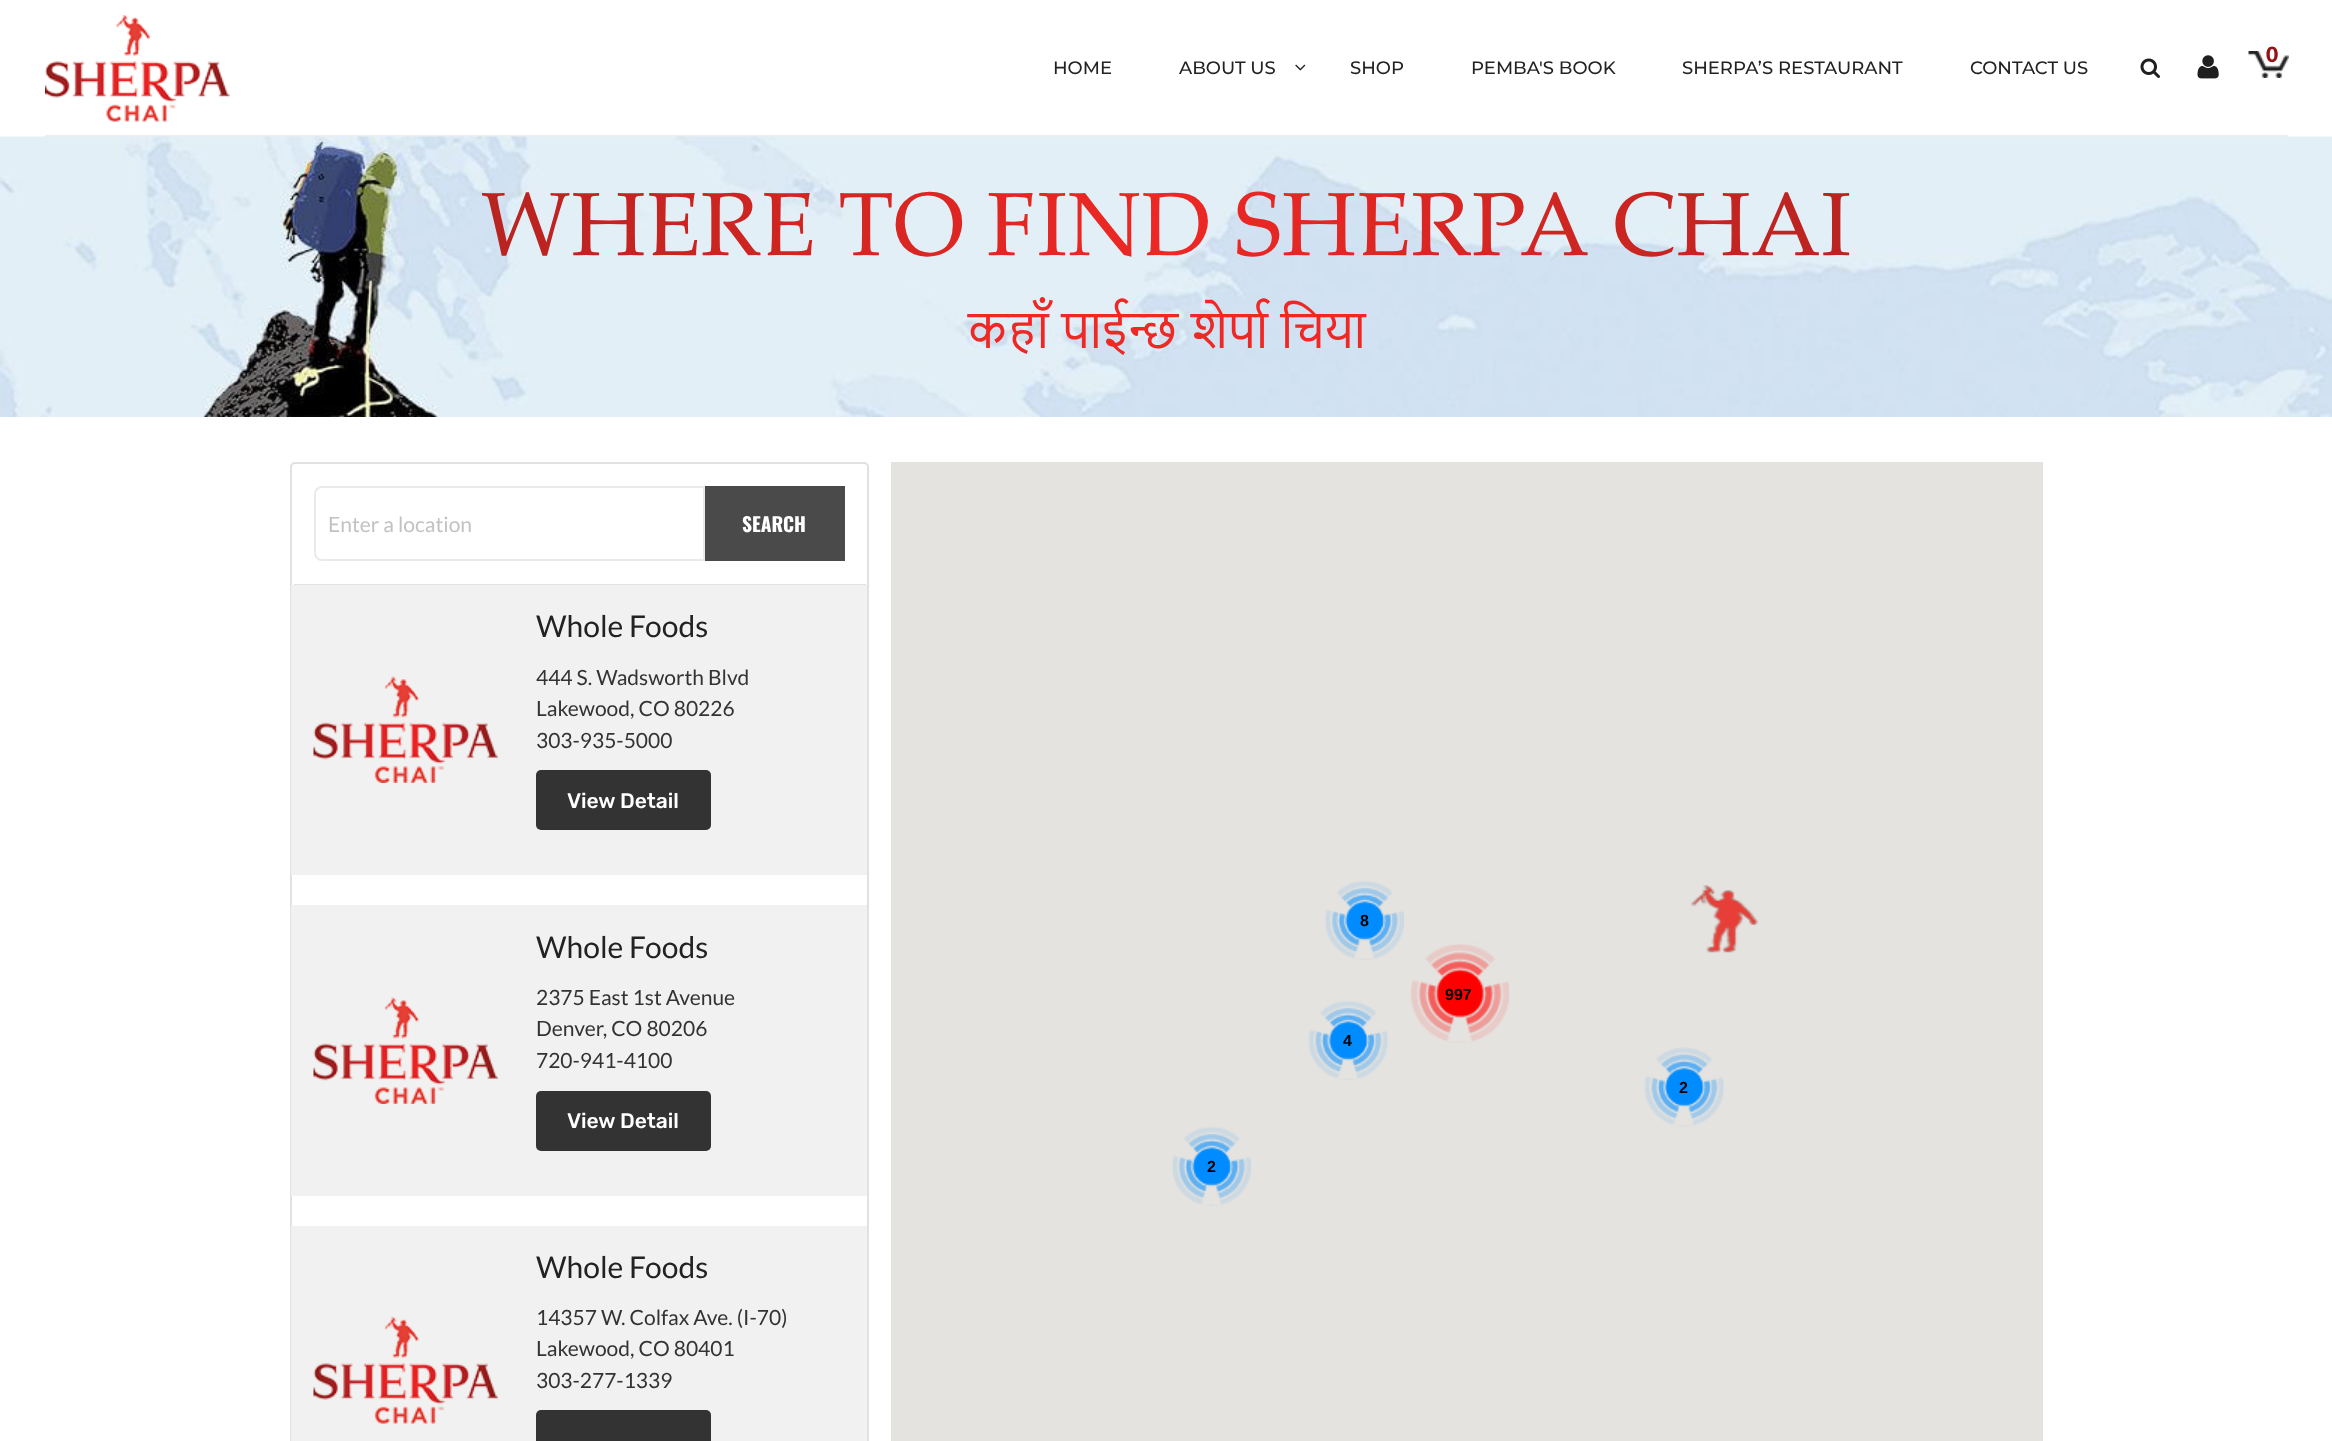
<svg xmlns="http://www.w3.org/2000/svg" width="2332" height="1441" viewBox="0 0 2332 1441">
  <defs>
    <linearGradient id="g1" gradientUnits="userSpaceOnUse" x1="0" y1="235" x2="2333" y2="235"><stop offset="0" stop-color="#92201d"/><stop offset="0.5" stop-color="#ee2824"/><stop offset="1" stop-color="#94211e"/></linearGradient>
  </defs>
  <rect width="100%" height="100%" fill="#ffffff"/>
  <rect x="45" y="135" width="2243" height="2" fill="#eeeeee"/>
  <image x="45" y="15" width="185" height="107" href="img1.png"/>
  <text x="1053" y="74" font-family="Montserrat" font-size="18" font-weight="500" fill="#222222">HOME</text>
  <text x="1179" y="74" font-family="Montserrat" font-size="18" font-weight="500" fill="#222222">ABOUT US</text>
  <image x="1295" y="64" width="11" height="7" href="img2.png"/>
  <text x="1350" y="74" font-family="Montserrat" font-size="18" font-weight="500" fill="#222222">SHOP</text>
  <text x="1471" y="74" font-family="Montserrat" font-size="18" font-weight="500" fill="#222222">PEMBA'S BOOK</text>
  <text x="1682" y="74" font-family="Montserrat" font-size="18" font-weight="500" fill="#222222">SHERPA’S RESTAURANT</text>
  <text x="1970" y="74" font-family="Montserrat" font-size="18" font-weight="500" fill="#222222">CONTACT US</text>
  <image x="2140" y="58" width="20" height="20" href="img3.png"/>
  <image x="2197" y="55" width="22" height="24" href="img4.png"/>
  <image x="2248" y="51" width="41" height="27" href="img5.png"/>
  <text x="2266" y="62" font-family="Lato" font-size="21" font-weight="900" fill="#951313">0</text>
  <image x="0" y="136" width="2332" height="281" href="img6.png"/>
  <text x="481" y="255" font-family="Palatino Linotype" font-size="90" fill="url(#g1)">WHERE TO FIND SHERPA CHAI</text>
  <text x="968" y="348" font-family="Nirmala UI" font-size="46.75" fill="#ee2824">कहॉं पाईन्छ शेर्पा चिया</text>
  <rect x="291" y="463" width="577" height="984" rx="4" fill="none" stroke="#e1e1e1" stroke-width="2"/>
  <rect x="294" y="584" width="572" height="1" fill="#e1e1e1"/>
  <path d="M322 487H704V560H322C318 560 315 557 315 553V494C315 490 318 487 322 487Z" fill="none" stroke="#eaeaea" stroke-width="2"/>
  <text x="328" y="532" font-family="Lato" font-size="21" fill="#c2c2c2">Enter a location</text>
  <rect x="705" y="486" width="140" height="75" fill="#4a4a4a"/>
  <text x="742" y="532" font-family="Oswald" font-size="19.5" font-weight="bold" fill="#ffffff">SEARCH</text>
  <rect x="291" y="585" width="576" height="290" fill="#f1f1f1"/>
  <image x="313" y="676" width="185" height="107" href="img7.png"/>
  <text x="536" y="637" font-family="Lato" font-size="30" fill="#222222">Whole Foods</text>
  <text x="536" y="685" font-family="Lato" font-size="21" fill="#333333">444 S. Wadsworth Blvd</text>
  <text x="536" y="716" font-family="Lato" font-size="21" fill="#333333">Lakewood, CO 80226</text>
  <text x="536" y="748" font-family="Lato" font-size="21" fill="#333333">303-935-5000</text>
  <rect x="536" y="770" width="175" height="60" rx="5" fill="#333333"/>
  <text x="567" y="808" font-family="Rubik" font-size="21" font-weight="500" fill="#ffffff">View Detail</text>
  <rect x="291" y="905" width="576" height="291" fill="#f1f1f1"/>
  <image x="313" y="997" width="185" height="107" href="img7.png"/>
  <text x="536" y="958" font-family="Lato" font-size="30" fill="#222222">Whole Foods</text>
  <text x="536" y="1005" font-family="Lato" font-size="21" fill="#333333">2375 East 1st Avenue</text>
  <text x="536" y="1036" font-family="Lato" font-size="21" fill="#333333">Denver, CO 80206</text>
  <text x="536" y="1068" font-family="Lato" font-size="21" fill="#333333">720-941-4100</text>
  <rect x="536" y="1091" width="175" height="60" rx="5" fill="#333333"/>
  <text x="567" y="1128" font-family="Rubik" font-size="21" font-weight="500" fill="#ffffff">View Detail</text>
  <rect x="291" y="1226" width="576" height="215" fill="#f1f1f1"/>
  <image x="313" y="1317" width="185" height="107" href="img8.png"/>
  <text x="536" y="1278" font-family="Lato" font-size="30" fill="#222222">Whole Foods</text>
  <text x="536" y="1325" font-family="Lato" font-size="21" fill="#333333">14357 W. Colfax Ave. (I-70)</text>
  <text x="536" y="1356" font-family="Lato" font-size="21" fill="#333333">Lakewood, CO 80401</text>
  <text x="536" y="1388" font-family="Lato" font-size="21" fill="#333333">303-277-1339</text>
  <rect x="536" y="1410" width="175" height="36" rx="5" fill="#333333"/>
  <rect x="891" y="462" width="1152" height="979" fill="#e5e3df"/>
  <image x="1325" y="881" width="79" height="79" href="img9.png"/>
  <text x="1360" y="926" font-family="Liberation Sans" font-size="16" font-weight="bold" fill="#000000">8</text>
  <image x="1410" y="943" width="99" height="100" href="img10.png"/>
  <text x="1445" y="1000" font-family="Liberation Sans" font-size="16" font-weight="bold" fill="#000000">997</text>
  <image x="1308" y="1000" width="80" height="80" href="img11.png"/>
  <text x="1343" y="1046" font-family="Liberation Sans" font-size="16" font-weight="bold" fill="#000000">4</text>
  <image x="1644" y="1047" width="80" height="80" href="img12.png"/>
  <text x="1679" y="1093" font-family="Liberation Sans" font-size="16" font-weight="bold" fill="#000000">2</text>
  <image x="1172" y="1127" width="79" height="79" href="img13.png"/>
  <text x="1207" y="1172" font-family="Liberation Sans" font-size="16" font-weight="bold" fill="#000000">2</text>
  <image x="1690" y="885" width="69" height="68" href="img14.png"/>
</svg>
